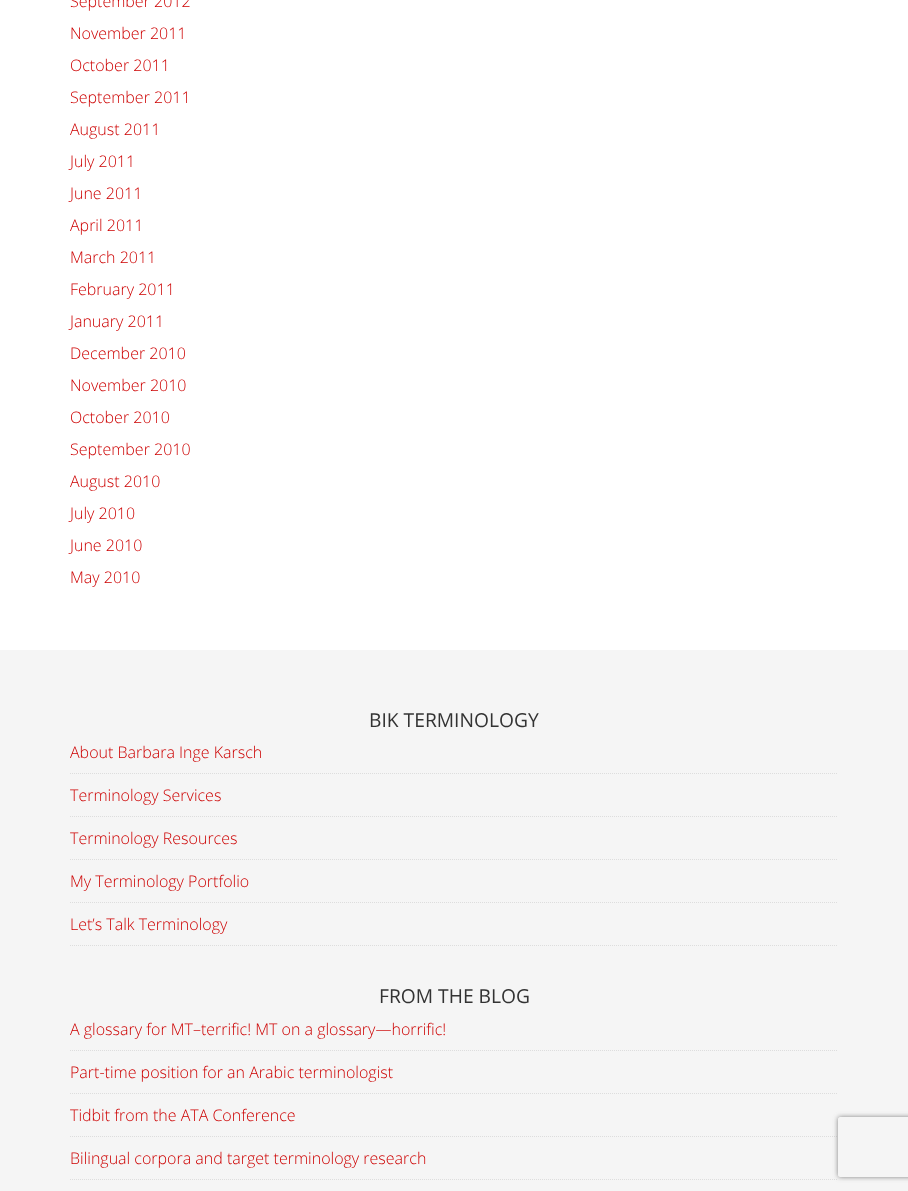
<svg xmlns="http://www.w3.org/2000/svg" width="908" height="1191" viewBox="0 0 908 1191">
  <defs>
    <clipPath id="clip1"><path d="M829 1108H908V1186H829ZM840 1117H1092C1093 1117 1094 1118 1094 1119V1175C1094 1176 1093 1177 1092 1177H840C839 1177 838 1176 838 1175V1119C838 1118 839 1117 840 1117Z" clip-rule="evenodd"/></clipPath>
    <filter id="blur1" x="-50%" y="-200%" width="200%" height="500%"><feGaussianBlur stdDeviation="2.5"/></filter>
  </defs>
  <rect width="100%" height="100%" fill="#ffffff"/>
  <text x="70" y="7" font-family="Open Sans" font-size="16" font-weight="300" fill="#cd0000">September 2012</text>
  <text x="70" y="39" font-family="Open Sans" font-size="16" font-weight="300" fill="#cd0000">November 2011</text>
  <text x="70" y="71" font-family="Open Sans" font-size="16" font-weight="300" fill="#cd0000">October 2011</text>
  <text x="70" y="103" font-family="Open Sans" font-size="16" font-weight="300" fill="#cd0000">September 2011</text>
  <text x="70" y="135" font-family="Open Sans" font-size="16" font-weight="300" fill="#cd0000">August 2011</text>
  <text x="70" y="167" font-family="Open Sans" font-size="16" font-weight="300" fill="#cd0000">July 2011</text>
  <text x="70" y="199" font-family="Open Sans" font-size="16" font-weight="300" fill="#cd0000">June 2011</text>
  <text x="70" y="231" font-family="Open Sans" font-size="16" font-weight="300" fill="#cd0000">April 2011</text>
  <text x="70" y="263" font-family="Open Sans" font-size="16" font-weight="300" fill="#cd0000">March 2011</text>
  <text x="70" y="295" font-family="Open Sans" font-size="16" font-weight="300" fill="#cd0000">February 2011</text>
  <text x="70" y="327" font-family="Open Sans" font-size="16" font-weight="300" fill="#cd0000">January 2011</text>
  <text x="70" y="359" font-family="Open Sans" font-size="16" font-weight="300" fill="#cd0000">December 2010</text>
  <text x="70" y="391" font-family="Open Sans" font-size="16" font-weight="300" fill="#cd0000">November 2010</text>
  <text x="70" y="423" font-family="Open Sans" font-size="16" font-weight="300" fill="#cd0000">October 2010</text>
  <text x="70" y="455" font-family="Open Sans" font-size="16" font-weight="300" fill="#cd0000">September 2010</text>
  <text x="70" y="487" font-family="Open Sans" font-size="16" font-weight="300" fill="#cd0000">August 2010</text>
  <text x="70" y="519" font-family="Open Sans" font-size="16" font-weight="300" fill="#cd0000">July 2010</text>
  <text x="70" y="551" font-family="Open Sans" font-size="16" font-weight="300" fill="#cd0000">June 2010</text>
  <text x="70" y="583" font-family="Open Sans" font-size="16" font-weight="300" fill="#cd0000">May 2010</text>
  <rect x="0" y="650" width="908" height="541" fill="#f5f5f5"/>
  <text x="369" y="727" font-family="Open Sans" font-size="19.25" fill="#333333">BIK TERMINOLOGY</text>
  <path d="M70 773.5H838" fill="none" stroke="#dddddd" stroke-dasharray="1 1"/>
  <text x="70" y="758" font-family="Open Sans" font-size="16" font-weight="300" fill="#cd0000">About Barbara Inge Karsch</text>
  <path d="M70 816.5H838" fill="none" stroke="#dddddd" stroke-dasharray="1 1"/>
  <text x="70" y="801" font-family="Open Sans" font-size="16" font-weight="300" fill="#cd0000">Terminology Services</text>
  <path d="M70 859.5H838" fill="none" stroke="#dddddd" stroke-dasharray="1 1"/>
  <text x="70" y="844" font-family="Open Sans" font-size="16" font-weight="300" fill="#cd0000">Terminology Resources</text>
  <path d="M70 902.5H838" fill="none" stroke="#dddddd" stroke-dasharray="1 1"/>
  <text x="70" y="887" font-family="Open Sans" font-size="16" font-weight="300" fill="#cd0000">My Terminology Portfolio</text>
  <path d="M70 945.5H838" fill="none" stroke="#dddddd" stroke-dasharray="1 1"/>
  <text x="70" y="930" font-family="Open Sans" font-size="16" font-weight="300" fill="#cd0000">Let’s Talk Terminology</text>
  <text x="379" y="1003" font-family="Open Sans" font-size="19.25" fill="#333333">FROM THE BLOG</text>
  <path d="M70 1050.5H838" fill="none" stroke="#dddddd" stroke-dasharray="1 1"/>
  <text x="70" y="1035" font-family="Open Sans" font-size="16" font-weight="300" fill="#cd0000">A glossary for MT–terrific! MT on a glossary—horrific!</text>
  <path d="M70 1093.5H838" fill="none" stroke="#dddddd" stroke-dasharray="1 1"/>
  <text x="70" y="1078" font-family="Open Sans" font-size="16" font-weight="300" fill="#cd0000">Part-time position for an Arabic terminologist</text>
  <path d="M70 1136.5H838" fill="none" stroke="#dddddd" stroke-dasharray="1 1"/>
  <text x="70" y="1121" font-family="Open Sans" font-size="16" font-weight="300" fill="#cd0000">Tidbit from the ATA Conference</text>
  <path d="M70 1179.5H838" fill="none" stroke="#dddddd" stroke-dasharray="1 1"/>
  <text x="70" y="1164" font-family="Open Sans" font-size="16" font-weight="300" fill="#cd0000">Bilingual corpora and target terminology research</text>
  <g clip-path="url(#clip1)">
    <rect x="838" y="1117" width="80" height="60" rx="2" fill="#808080" filter="url(#blur1)"/>
  </g>
</svg>
